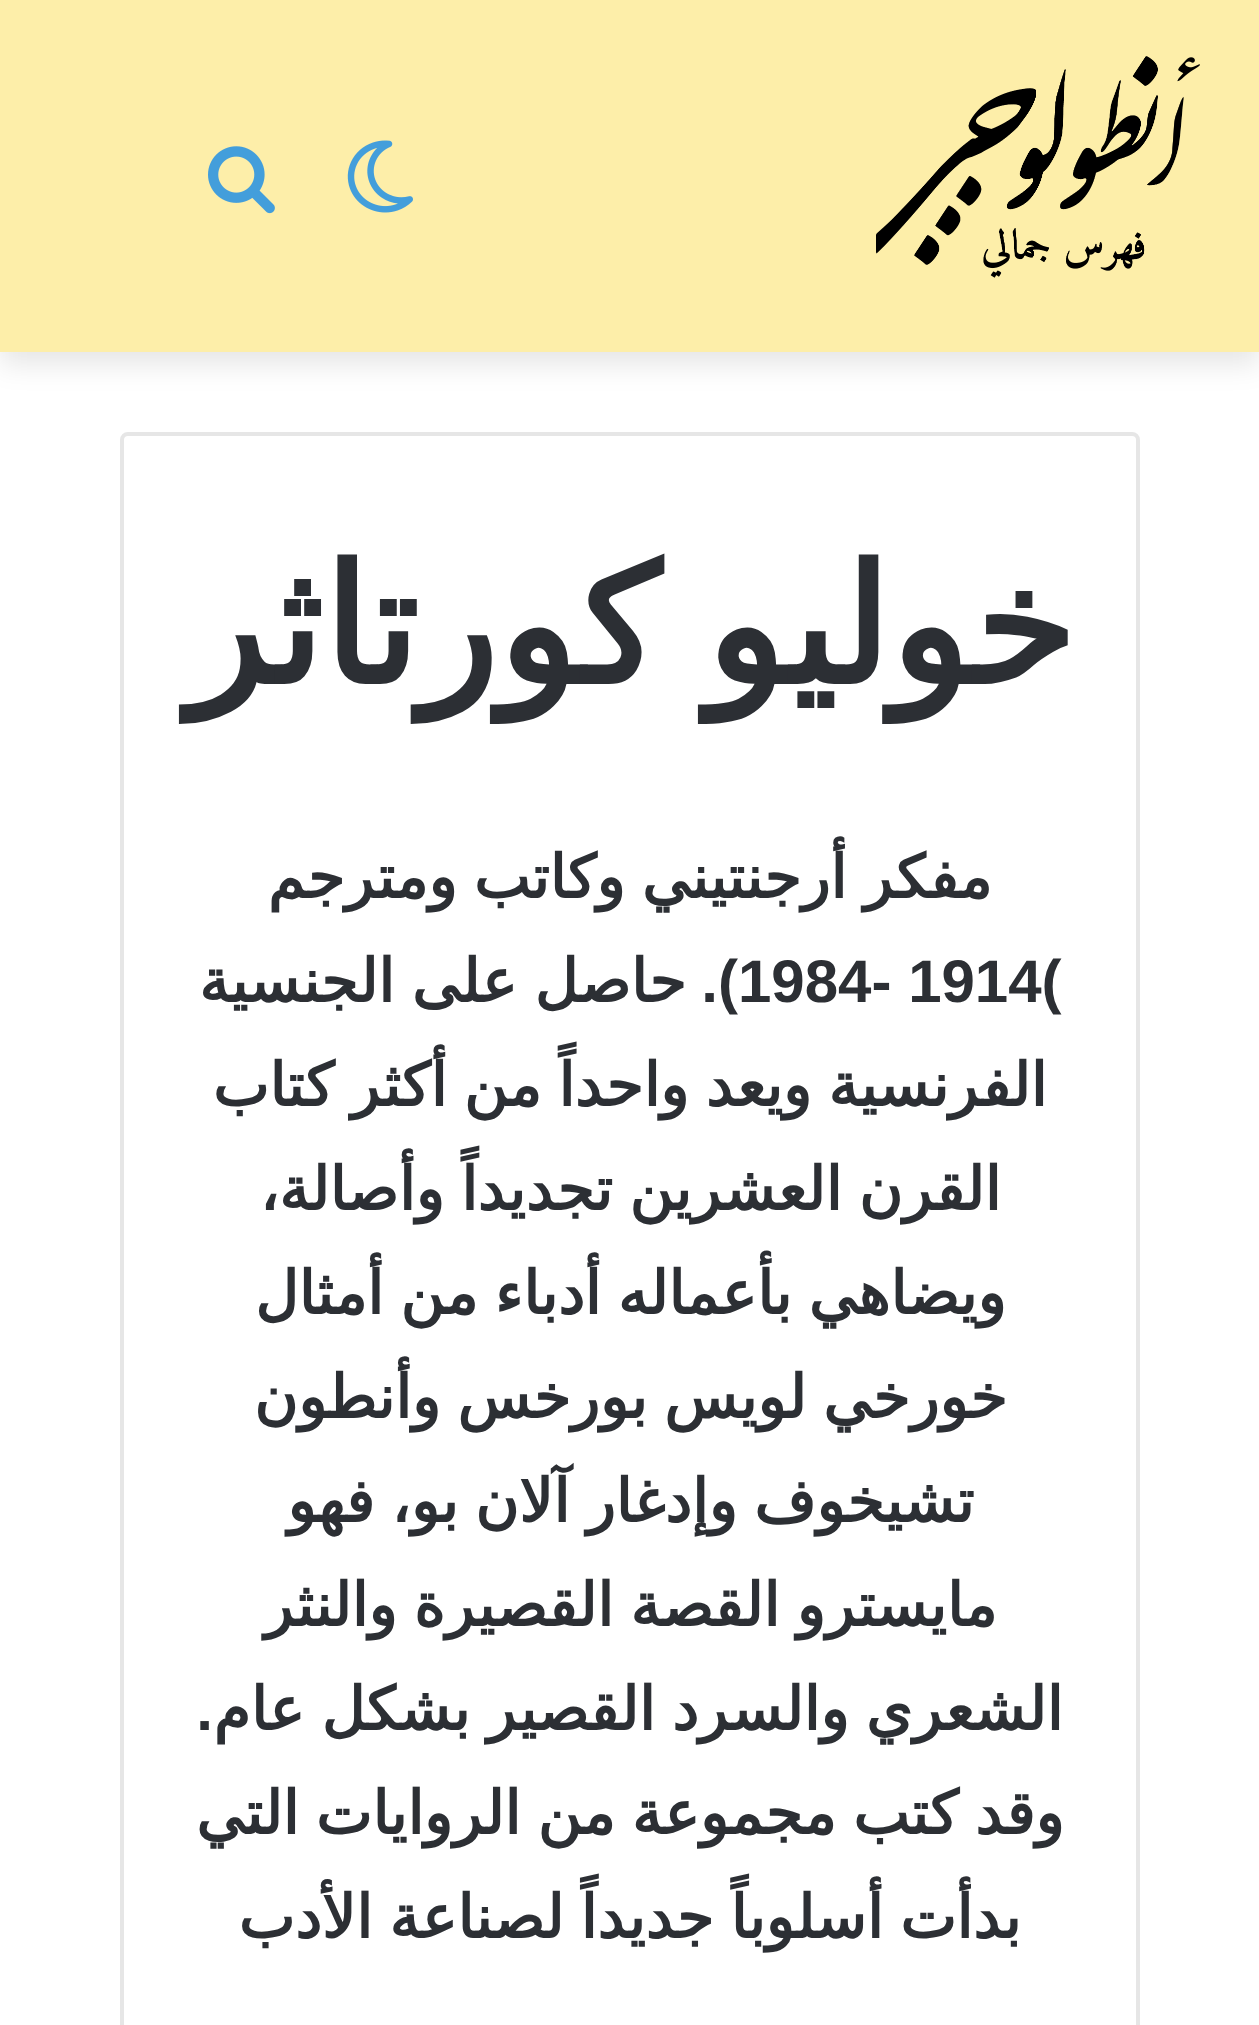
<svg xmlns="http://www.w3.org/2000/svg" width="1259" height="2025" viewBox="0 0 1259 2025">
  <defs>
    <filter id="blur1" x="-50%" y="-200%" width="200%" height="500%"><feGaussianBlur stdDeviation="14"/></filter>
  </defs>
  <rect width="100%" height="100%" fill="#ffffff"/>
  <rect x="0" y="12" width="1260" height="352" fill="#000000" fill-opacity="0.1" filter="url(#blur1)"/>
  <rect x="0" y="0" width="1259" height="352" fill="#fdeea9"/>
  <image x="876" y="56" width="324" height="222" href="img1.png"/>
  <image x="347" y="140" width="66" height="73" href="img2.png"/>
  <image x="208" y="146" width="67" height="68" href="img3.png"/>
  <path d="M128 434H1132C1135.5 434 1138 436.5 1138 440V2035H122V440C122 436.5 124.5 434 128 434Z" fill="none" stroke="#e6e6e6" stroke-width="4"/>
  <text x="1075" y="684" word-spacing="-7" font-family="DejaVu Sans" font-size="164" font-weight="bold" direction="rtl" fill="#2c2f34">خوليو كورتاثر</text>
  <text x="992" y="898" word-spacing="-2.5" font-family="DejaVu Sans" font-size="60" font-weight="bold" direction="rtl" fill="#2c2f34">مفكر أرجنتيني وكاتب ومترجم</text>
  <text x="738" y="1002" font-family="Liberation Sans" font-size="60" font-weight="bold" fill="#2c2f34">1984- 1914(</text>
  <text x="738" y="1002" font-family="Liberation Sans" font-size="60" font-weight="bold" direction="rtl" fill="#2c2f34">).</text>
  <text x="686" y="1002" word-spacing="-2" font-family="DejaVu Sans" font-size="60" font-weight="bold" direction="rtl" fill="#2c2f34">حاصل على الجنسية</text>
  <text x="1047" y="1106" word-spacing="-2.5" font-family="DejaVu Sans" font-size="60" font-weight="bold" direction="rtl" fill="#2c2f34">الفرنسية ويعد واحداً من أكثر كتاب</text>
  <text x="1001" y="1210" word-spacing="-2.5" font-family="DejaVu Sans" font-size="60" font-weight="bold" direction="rtl" fill="#2c2f34">القرن العشرين تجديداً وأصالة،</text>
  <text x="1006" y="1314" word-spacing="-2.5" font-family="DejaVu Sans" font-size="60" font-weight="bold" direction="rtl" fill="#2c2f34">ويضاهي بأعماله أدباء من أمثال</text>
  <text x="1007" y="1418" word-spacing="-2.5" font-family="DejaVu Sans" font-size="60" font-weight="bold" direction="rtl" fill="#2c2f34">خورخي لويس بورخس وأنطون</text>
  <text x="974" y="1522" word-spacing="-2.5" font-family="DejaVu Sans" font-size="60" font-weight="bold" direction="rtl" fill="#2c2f34">تشيخوف وإدغار آلان بو، فهو</text>
  <text x="997" y="1626" word-spacing="-2.5" font-family="DejaVu Sans" font-size="60" font-weight="bold" direction="rtl" fill="#2c2f34">مايسترو القصة القصيرة والنثر</text>
  <text x="1063" y="1730" word-spacing="-2.5" font-family="DejaVu Sans" font-size="60" font-weight="bold" direction="rtl" fill="#2c2f34">الشعري والسرد القصير بشكل عام</text>
  <text x="213" y="1730" font-family="Liberation Sans" font-size="60" font-weight="bold" direction="rtl" fill="#2c2f34">.</text>
  <text x="1064" y="1834" word-spacing="-2.5" font-family="DejaVu Sans" font-size="60" font-weight="bold" direction="rtl" fill="#2c2f34">وقد كتب مجموعة من الروايات التي</text>
  <text x="1021" y="1938" word-spacing="-2.5" font-family="DejaVu Sans" font-size="60" font-weight="bold" direction="rtl" fill="#2c2f34">بدأت أسلوباً جديداً لصناعة الأدب</text>
</svg>
